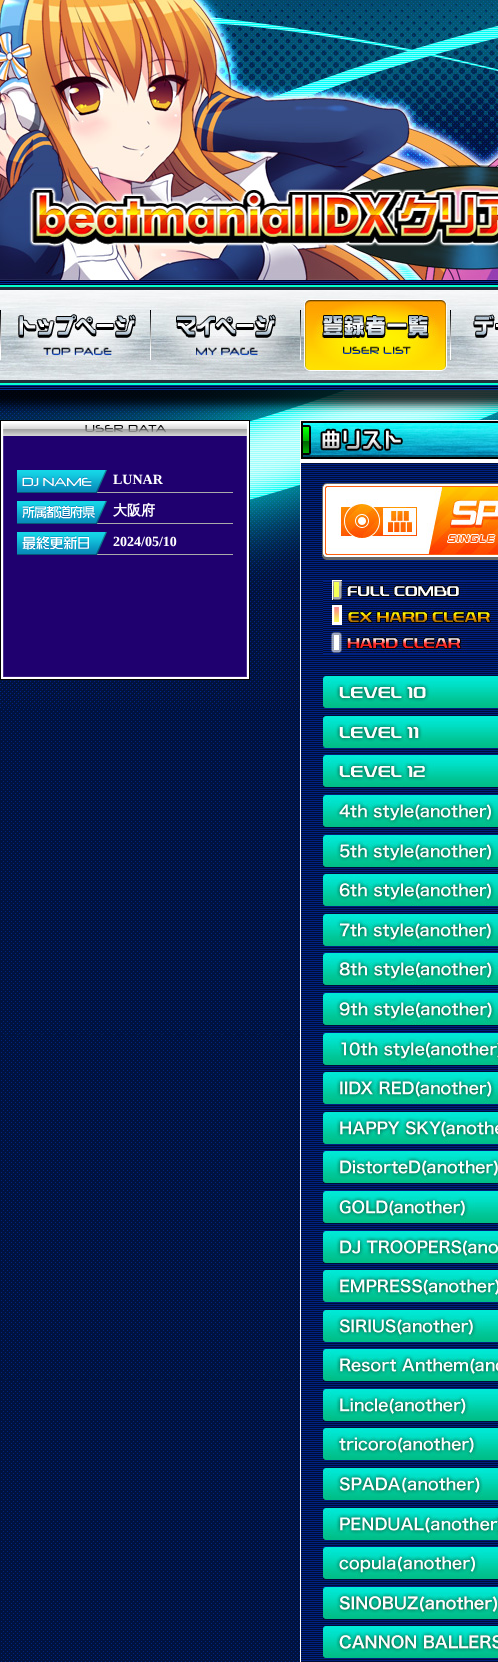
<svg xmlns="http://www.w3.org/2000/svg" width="498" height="1662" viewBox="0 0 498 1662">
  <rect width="100%" height="100%" fill="#ffffff"/>
  <image x="0" y="708" width="300" height="954" href="img1.png"/>
  <image x="0" y="390" width="498" height="318" href="img2.png"/>
  <image x="0" y="280" width="498" height="10" href="img3.png"/>
  <image x="0" y="0" width="498" height="280" href="img4.png"/>
  <image x="0" y="290" width="498" height="123" href="img5.png"/>
  <image x="0" y="290" width="150" height="90" href="img6.png"/>
  <image x="0" y="298" width="150" height="80" href="img7.png"/>
  <image x="150" y="290" width="150" height="90" href="img8.png"/>
  <image x="150" y="298" width="150" height="80" href="img9.png"/>
  <image x="300" y="290" width="150" height="90" href="img10.png"/>
  <image x="450" y="292" width="48" height="88" href="img11.png"/>
  <image x="450" y="298" width="48" height="74" href="img12.png"/>
  <image x="0" y="420" width="250" height="260" href="img13.png"/>
  <image x="1" y="420" width="248" height="16" href="img14.png"/>
  <image x="17" y="470" width="90" height="23" href="img15.png"/>
  <rect x="107" y="492" width="126" height="1" fill="#aaaaaa"/>
  <text x="113" y="484" font-family="Liberation Serif" font-size="14" font-weight="bold" fill="#ffffff">LUNAR</text>
  <image x="17" y="501" width="90" height="23" href="img16.png"/>
  <rect x="107" y="523" width="126" height="1" fill="#aaaaaa"/>
  <text x="113" y="515" font-family="WenQuanYi Zen Hei" font-size="14" font-weight="bold" fill="#ffffff">大阪府</text>
  <image x="17" y="532" width="90" height="23" href="img17.png"/>
  <rect x="107" y="554" width="126" height="1" fill="#aaaaaa"/>
  <text x="113" y="546" font-family="Liberation Serif" font-size="14" font-weight="bold" fill="#ffffff">2024/05/10</text>
  <image x="300" y="463" width="198" height="1199" href="img18.png"/>
  <image x="300" y="420" width="198" height="43" href="img19.png"/>
  <image x="322" y="483" width="176" height="77" href="img20.png"/>
  <image x="323" y="581" width="175" height="73" href="img22.png"/>
  <image x="332" y="580" width="10" height="20" href="img21.png"/>
  <image x="332" y="605" width="10" height="20" href="img23.png"/>
  <image x="323" y="676" width="175" height="32" href="img24.png"/>
  <image x="323" y="716" width="175" height="32" href="img25.png"/>
  <image x="323" y="755" width="175" height="32" href="img26.png"/>
  <image x="323" y="795" width="175" height="32" href="img27.png"/>
  <image x="323" y="835" width="175" height="32" href="img28.png"/>
  <image x="323" y="874" width="175" height="32" href="img29.png"/>
  <image x="323" y="914" width="175" height="32" href="img30.png"/>
  <image x="323" y="953" width="175" height="32" href="img31.png"/>
  <image x="323" y="993" width="175" height="32" href="img32.png"/>
  <image x="323" y="1033" width="175" height="32" href="img33.png"/>
  <image x="323" y="1072" width="175" height="32" href="img34.png"/>
  <image x="323" y="1112" width="175" height="32" href="img35.png"/>
  <image x="323" y="1151" width="175" height="32" href="img36.png"/>
  <image x="323" y="1191" width="175" height="32" href="img37.png"/>
  <image x="323" y="1231" width="175" height="32" href="img38.png"/>
  <image x="323" y="1270" width="175" height="32" href="img39.png"/>
  <image x="323" y="1310" width="175" height="32" href="img40.png"/>
  <image x="323" y="1349" width="175" height="32" href="img41.png"/>
  <image x="323" y="1389" width="175" height="32" href="img42.png"/>
  <image x="323" y="1428" width="175" height="32" href="img43.png"/>
  <image x="323" y="1468" width="175" height="32" href="img44.png"/>
  <image x="323" y="1508" width="175" height="32" href="img45.png"/>
  <image x="323" y="1547" width="175" height="32" href="img46.png"/>
  <image x="323" y="1587" width="175" height="32" href="img47.png"/>
  <image x="323" y="1626" width="175" height="32" href="img48.png"/>
</svg>
